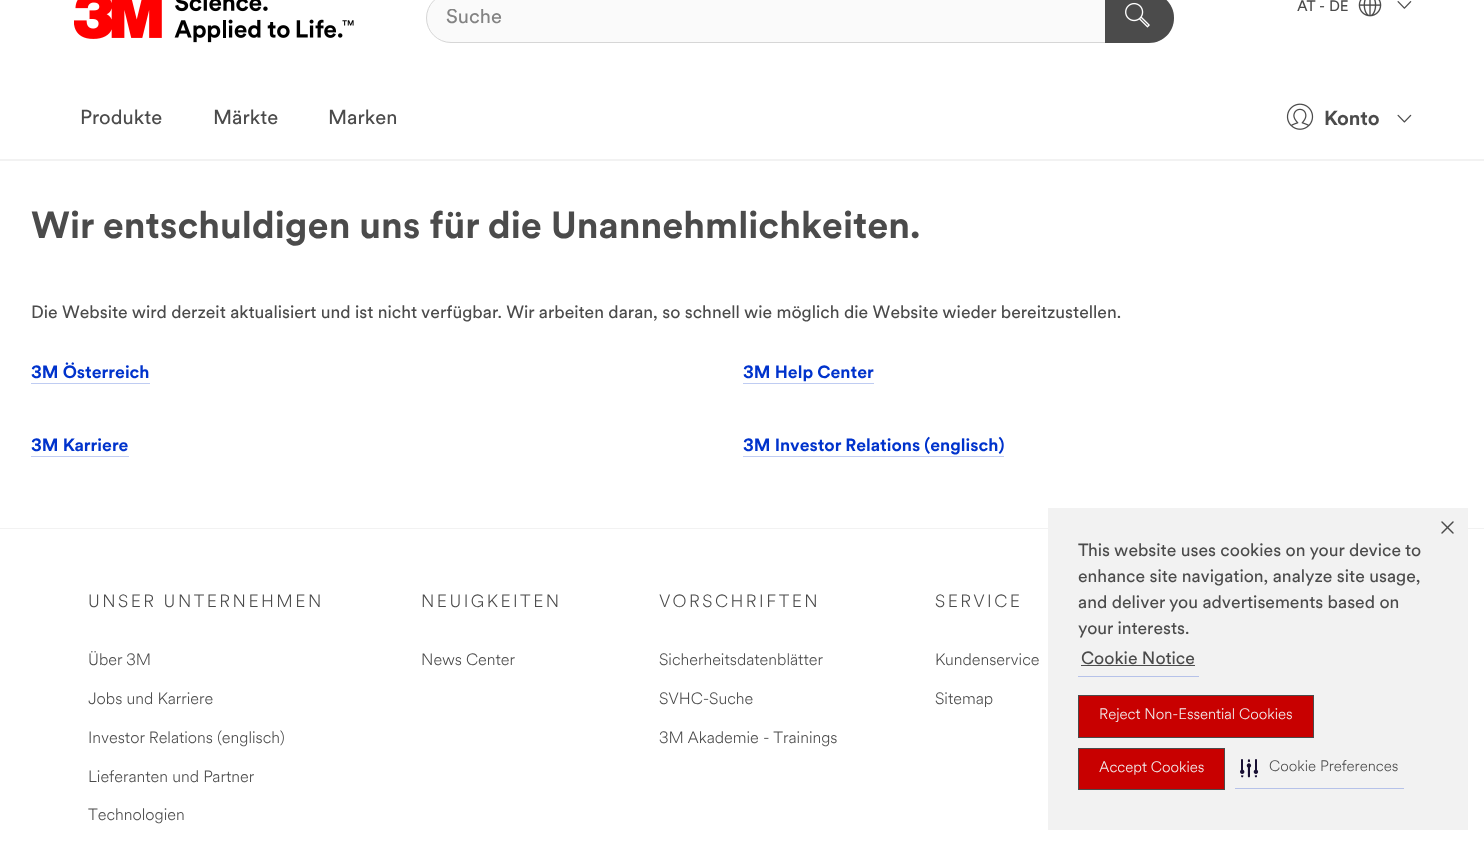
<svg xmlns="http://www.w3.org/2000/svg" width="1484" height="847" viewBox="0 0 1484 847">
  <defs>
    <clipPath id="clip1"><rect x="446" y="9" width="647" height="20"/></clipPath>
  </defs>
  <rect width="100%" height="100%" fill="#ffffff"/>
  <text x="1297" y="11" font-family="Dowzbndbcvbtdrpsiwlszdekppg" font-size="15" fill="#4b4b4b">AT - DE</text>
  <image x="1358" y="0" width="24" height="17" href="img1.png"/>
  <image x="1397" y="1" width="15" height="8" href="img2.png"/>
  <text x="80" y="124" font-family="Dowzbndbcvbtdrpsiwlszdekppg" font-size="20" fill="#4b4b4b">Produkte</text>
  <text x="213" y="124" font-family="Dowzbndbcvbtdrpsiwlszdekppg" font-size="20" fill="#4b4b4b">Märkte</text>
  <text x="328" y="124" font-family="Dowzbndbcvbtdrpsiwlszdekppg" font-size="20" fill="#4b4b4b">Marken</text>
  <image x="1286" y="103" width="28" height="27" href="img3.png"/>
  <text x="1324" y="125" font-family="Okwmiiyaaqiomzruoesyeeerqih" font-size="20" font-weight="bold" fill="#4b4b4b">Konto</text>
  <image x="1397" y="114" width="15" height="9" href="img4.png"/>
  <image x="74" y="0" width="280" height="43" href="img5.png"/>
  <rect x="426.5" y="-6.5" width="747" height="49" rx="24.5" fill="#fafafa" stroke="#d6d6d6"/>
  <g clip-path="url(#clip1)">
    <text x="446" y="23" font-family="Dowzbndbcvbtdrpsiwlszdekppg" font-size="20" fill="#838383">Suche</text>
  </g>
  <path d="M1105-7H1149C1163-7 1174 4 1174 18C1174 32 1163 43 1149 43H1105Z" fill="#4b4b4b"/>
  <image x="1125" y="2" width="25" height="26" href="img6.png"/>
  <rect x="0" y="159" width="1484" height="2" fill="#f2f2f2"/>
  <text x="31" y="238" font-family="Okwmiiyaaqiomzruoesyeeerqih" font-size="37.5" font-weight="bold" fill="#4b4b4b">Wir entschuldigen uns für die Unannehmlichkeiten.</text>
  <text x="31" y="318" font-family="Dowzbndbcvbtdrpsiwlszdekppg" font-size="17.5" fill="#4b4b4b">Die Website wird derzeit aktualisiert und ist nicht verfügbar. Wir arbeiten daran, so schnell wie möglich die Website wieder bereitzustellen.</text>
  <text x="31" y="378" font-family="Okwmiiyaaqiomzruoesyeeerqih" font-size="17.5" font-weight="bold" fill="#0033cc">3M Österreich</text>
  <rect x="31" y="383" width="119" height="1" fill="#bfccf2"/>
  <text x="743" y="378" font-family="Okwmiiyaaqiomzruoesyeeerqih" font-size="17.5" font-weight="bold" fill="#0033cc">3M Help Center</text>
  <rect x="743" y="383" width="131" height="1" fill="#bfccf2"/>
  <text x="31" y="451" font-family="Okwmiiyaaqiomzruoesyeeerqih" font-size="17.5" font-weight="bold" fill="#0033cc">3M Karriere</text>
  <rect x="31" y="456" width="98" height="1" fill="#bfccf2"/>
  <text x="743" y="451" font-family="Okwmiiyaaqiomzruoesyeeerqih" font-size="17.5" font-weight="bold" fill="#0033cc">3M Investor Relations (englisch)</text>
  <rect x="743" y="456" width="261" height="1" fill="#bfccf2"/>
  <rect x="0" y="528" width="1484" height="1" fill="#f2f2f2"/>
  <text x="88" y="607" font-family="'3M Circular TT'" font-size="17.5" font-weight="300" letter-spacing="2.5" fill="#4b4b4b">UNSER UNTERNEHMEN</text>
  <text x="88" y="665" font-family="'3M Circular TT'" font-size="16.25" font-weight="300" fill="#4b4b4b">Über 3M</text>
  <text x="88" y="704" font-family="'3M Circular TT'" font-size="16.25" font-weight="300" fill="#4b4b4b">Jobs und Karriere</text>
  <text x="88" y="743" font-family="'3M Circular TT'" font-size="16.25" font-weight="300" fill="#4b4b4b">Investor Relations (englisch)</text>
  <text x="88" y="782" font-family="'3M Circular TT'" font-size="16.25" font-weight="300" fill="#4b4b4b">Lieferanten und Partner</text>
  <text x="88" y="820" font-family="'3M Circular TT'" font-size="16.25" font-weight="300" fill="#4b4b4b">Technologien</text>
  <text x="421" y="607" font-family="'3M Circular TT'" font-size="17.5" font-weight="300" letter-spacing="2.5" fill="#4b4b4b">NEUIGKEITEN</text>
  <text x="421" y="665" font-family="'3M Circular TT'" font-size="16.25" font-weight="300" fill="#4b4b4b">News Center</text>
  <text x="659" y="607" font-family="'3M Circular TT'" font-size="17.5" font-weight="300" letter-spacing="2.5" fill="#4b4b4b">VORSCHRIFTEN</text>
  <text x="659" y="665" font-family="'3M Circular TT'" font-size="16.25" font-weight="300" fill="#4b4b4b">Sicherheitsdatenblätter</text>
  <text x="659" y="704" font-family="'3M Circular TT'" font-size="16.25" font-weight="300" fill="#4b4b4b">SVHC-Suche</text>
  <text x="659" y="743" font-family="'3M Circular TT'" font-size="16.25" font-weight="300" fill="#4b4b4b">3M Akademie - Trainings</text>
  <text x="935" y="607" font-family="'3M Circular TT'" font-size="17.5" font-weight="300" letter-spacing="2.5" fill="#4b4b4b">SERVICE</text>
  <text x="935" y="665" font-family="'3M Circular TT'" font-size="16.25" font-weight="300" fill="#4b4b4b">Kundenservice</text>
  <text x="935" y="704" font-family="'3M Circular TT'" font-size="16.25" font-weight="300" fill="#4b4b4b">Sitemap</text>
  <rect x="1048" y="508" width="420" height="322" fill="#f2f2f2"/>
  <text x="1078" y="556" font-family="Dowzbndbcvbtdrpsiwlszdekppg" font-size="17.5" fill="#4b4b4b">This website uses cookies on your device to</text>
  <text x="1078" y="582" font-family="Dowzbndbcvbtdrpsiwlszdekppg" font-size="17.5" fill="#4b4b4b">enhance site navigation, analyze site usage,</text>
  <text x="1078" y="608" font-family="Dowzbndbcvbtdrpsiwlszdekppg" font-size="17.5" fill="#4b4b4b">and deliver you advertisements based on</text>
  <text x="1078" y="634" font-family="Dowzbndbcvbtdrpsiwlszdekppg" font-size="17.5" fill="#4b4b4b">your interests.</text>
  <rect x="1078" y="676" width="121" height="1" fill="#b6c2e9"/>
  <text x="1081" y="664" font-family="Dowzbndbcvbtdrpsiwlszdekppg" font-size="17.5" fill="#4b4b4b">Cookie Notice</text>
  <rect x="1081" y="665" width="114" height="1" fill="#4b4b4b"/>
  <image x="1441" y="521" width="13" height="13" href="img7.png"/>
  <rect x="1078.5" y="695.5" width="235" height="42" fill="#c80000" stroke="#4b4b4b"/>
  <text x="1099" y="719" font-family="'3M Circular TT'" font-size="15" font-weight="300" fill="#f2f2f2">Reject Non-Essential Cookies</text>
  <rect x="1078.5" y="748.5" width="146" height="41" fill="#c80000" stroke="#4b4b4b"/>
  <text x="1099" y="772" font-family="'3M Circular TT'" font-size="15" font-weight="300" fill="#f2f2f2">Accept Cookies</text>
  <rect x="1235" y="788" width="169" height="1" fill="#b6c2e9"/>
  <image x="1240" y="759" width="19" height="19" href="img8.png"/>
  <text x="1269" y="771" font-family="'3M Circular TT'" font-size="15" font-weight="300" fill="#4b4b4b">Cookie Preferences</text>
</svg>
